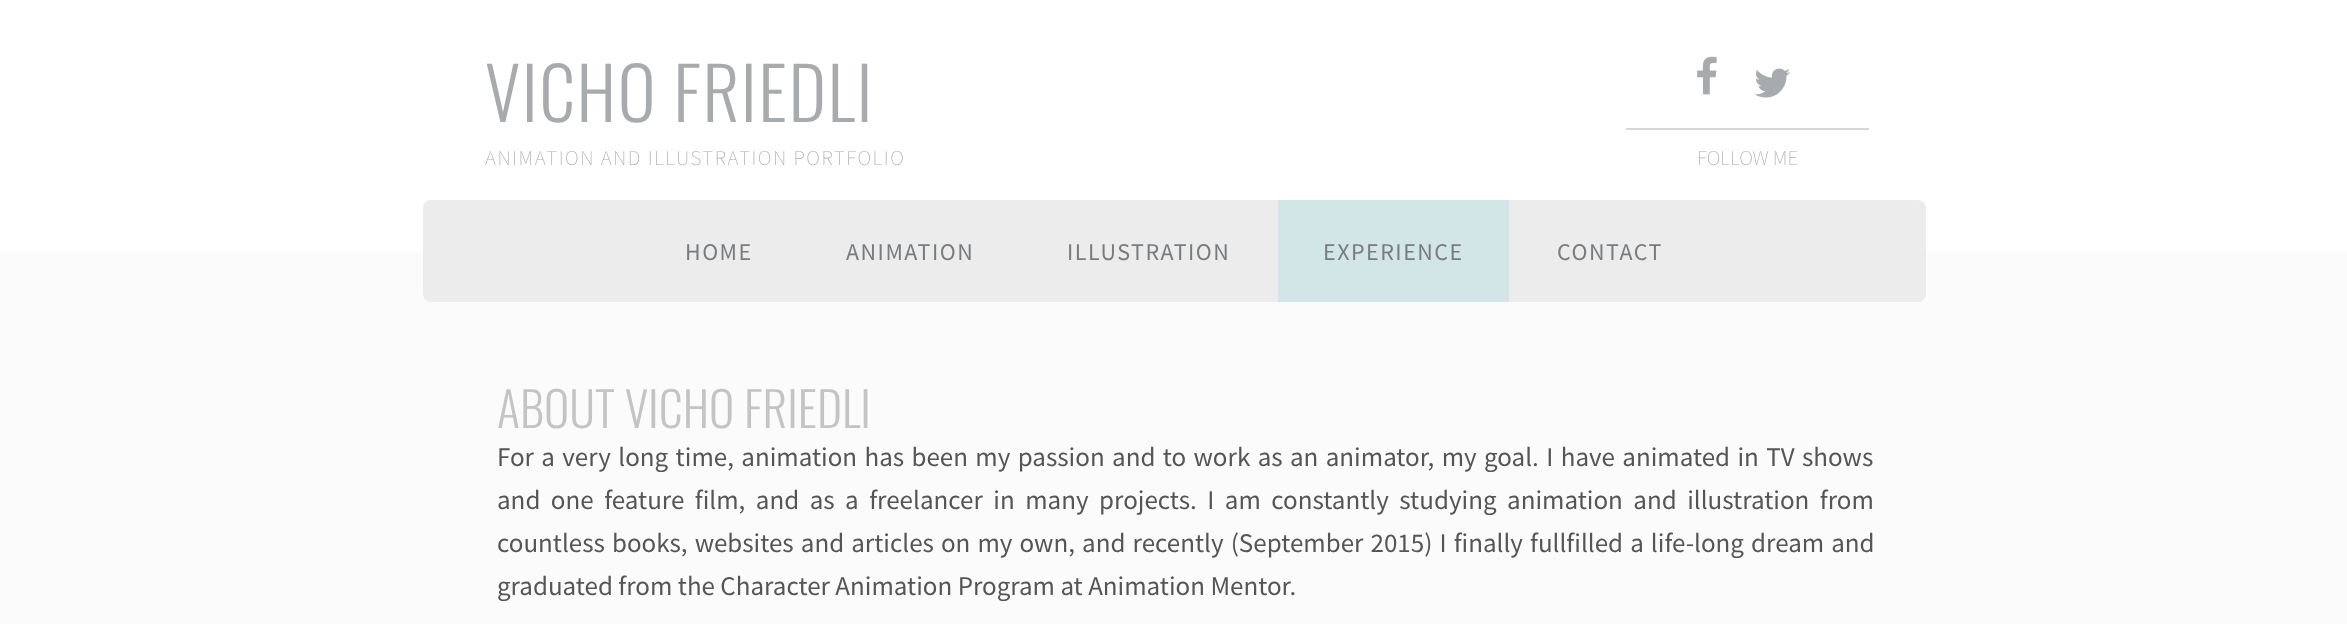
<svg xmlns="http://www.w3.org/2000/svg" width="2347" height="624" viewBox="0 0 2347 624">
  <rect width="100%" height="100%" fill="#fbfbfb"/>
  <rect x="0" y="0" width="2347" height="252" fill="#ffffff"/>
  <text x="485" y="122" font-family="Oswald" font-size="72" font-weight="300" letter-spacing="1.5" fill="#a8abad">VICHO FRIEDLI</text>
  <text x="485" y="165" font-family="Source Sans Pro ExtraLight" font-size="21" font-weight="200" letter-spacing="1.5" fill="#a8abad">ANIMATION AND ILLUSTRATION PORTFOLIO</text>
  <image x="1697" y="56" width="20" height="39" href="img1.png"/>
  <image x="1755" y="68" width="35" height="30" href="img2.png"/>
  <rect x="1626" y="128" width="243" height="2" fill="#d6d7d8"/>
  <text x="1697" y="165" font-family="Source Sans Pro ExtraLight" font-size="21" font-weight="200" fill="#a8abad">FOLLOW ME</text>
  <rect x="423" y="200" width="1503" height="102" rx="8" fill="#ececec"/>
  <text x="685" y="260" font-family="Source Sans Pro" font-size="24" letter-spacing="1.5" fill="#787c7f">HOME</text>
  <text x="846" y="260" font-family="Source Sans Pro" font-size="24" letter-spacing="1.5" fill="#787c7f">ANIMATION</text>
  <text x="1067" y="260" font-family="Source Sans Pro" font-size="24" letter-spacing="1.5" fill="#787c7f">ILLUSTRATION</text>
  <rect x="1278" y="200" width="231" height="102" fill="#d2e6e8"/>
  <text x="1323" y="260" font-family="Source Sans Pro" font-size="24" letter-spacing="1.5" fill="#787c7f">EXPERIENCE</text>
  <text x="1557" y="260" font-family="Source Sans Pro" font-size="24" letter-spacing="1.5" fill="#787c7f">CONTACT</text>
  <text x="497" y="428" font-family="Oswald" font-size="48" font-weight="300" fill="#c4c4c4">ABOUT VICHO FRIEDLI</text>
  <text x="497" y="466" word-spacing="2" font-family="Source Sans Pro" font-size="27" fill="#555555">For a very long time, animation has been my passion and to work as an animator, my goal. I have animated in TV shows</text>
  <text x="497" y="509" word-spacing="5.1" font-family="Source Sans Pro" font-size="27" fill="#555555">and one feature film, and as a freelancer in many projects. I am constantly studying animation and illustration from</text>
  <text x="497" y="552" word-spacing="1.7" font-family="Source Sans Pro" font-size="27" fill="#555555">countless books, websites and articles on my own, and recently (September 2015) I finally fullfilled a life-long dream and</text>
  <text x="497" y="595" font-family="Source Sans Pro" font-size="27" fill="#555555">graduated from the Character Animation Program at Animation Mentor.</text>
</svg>
